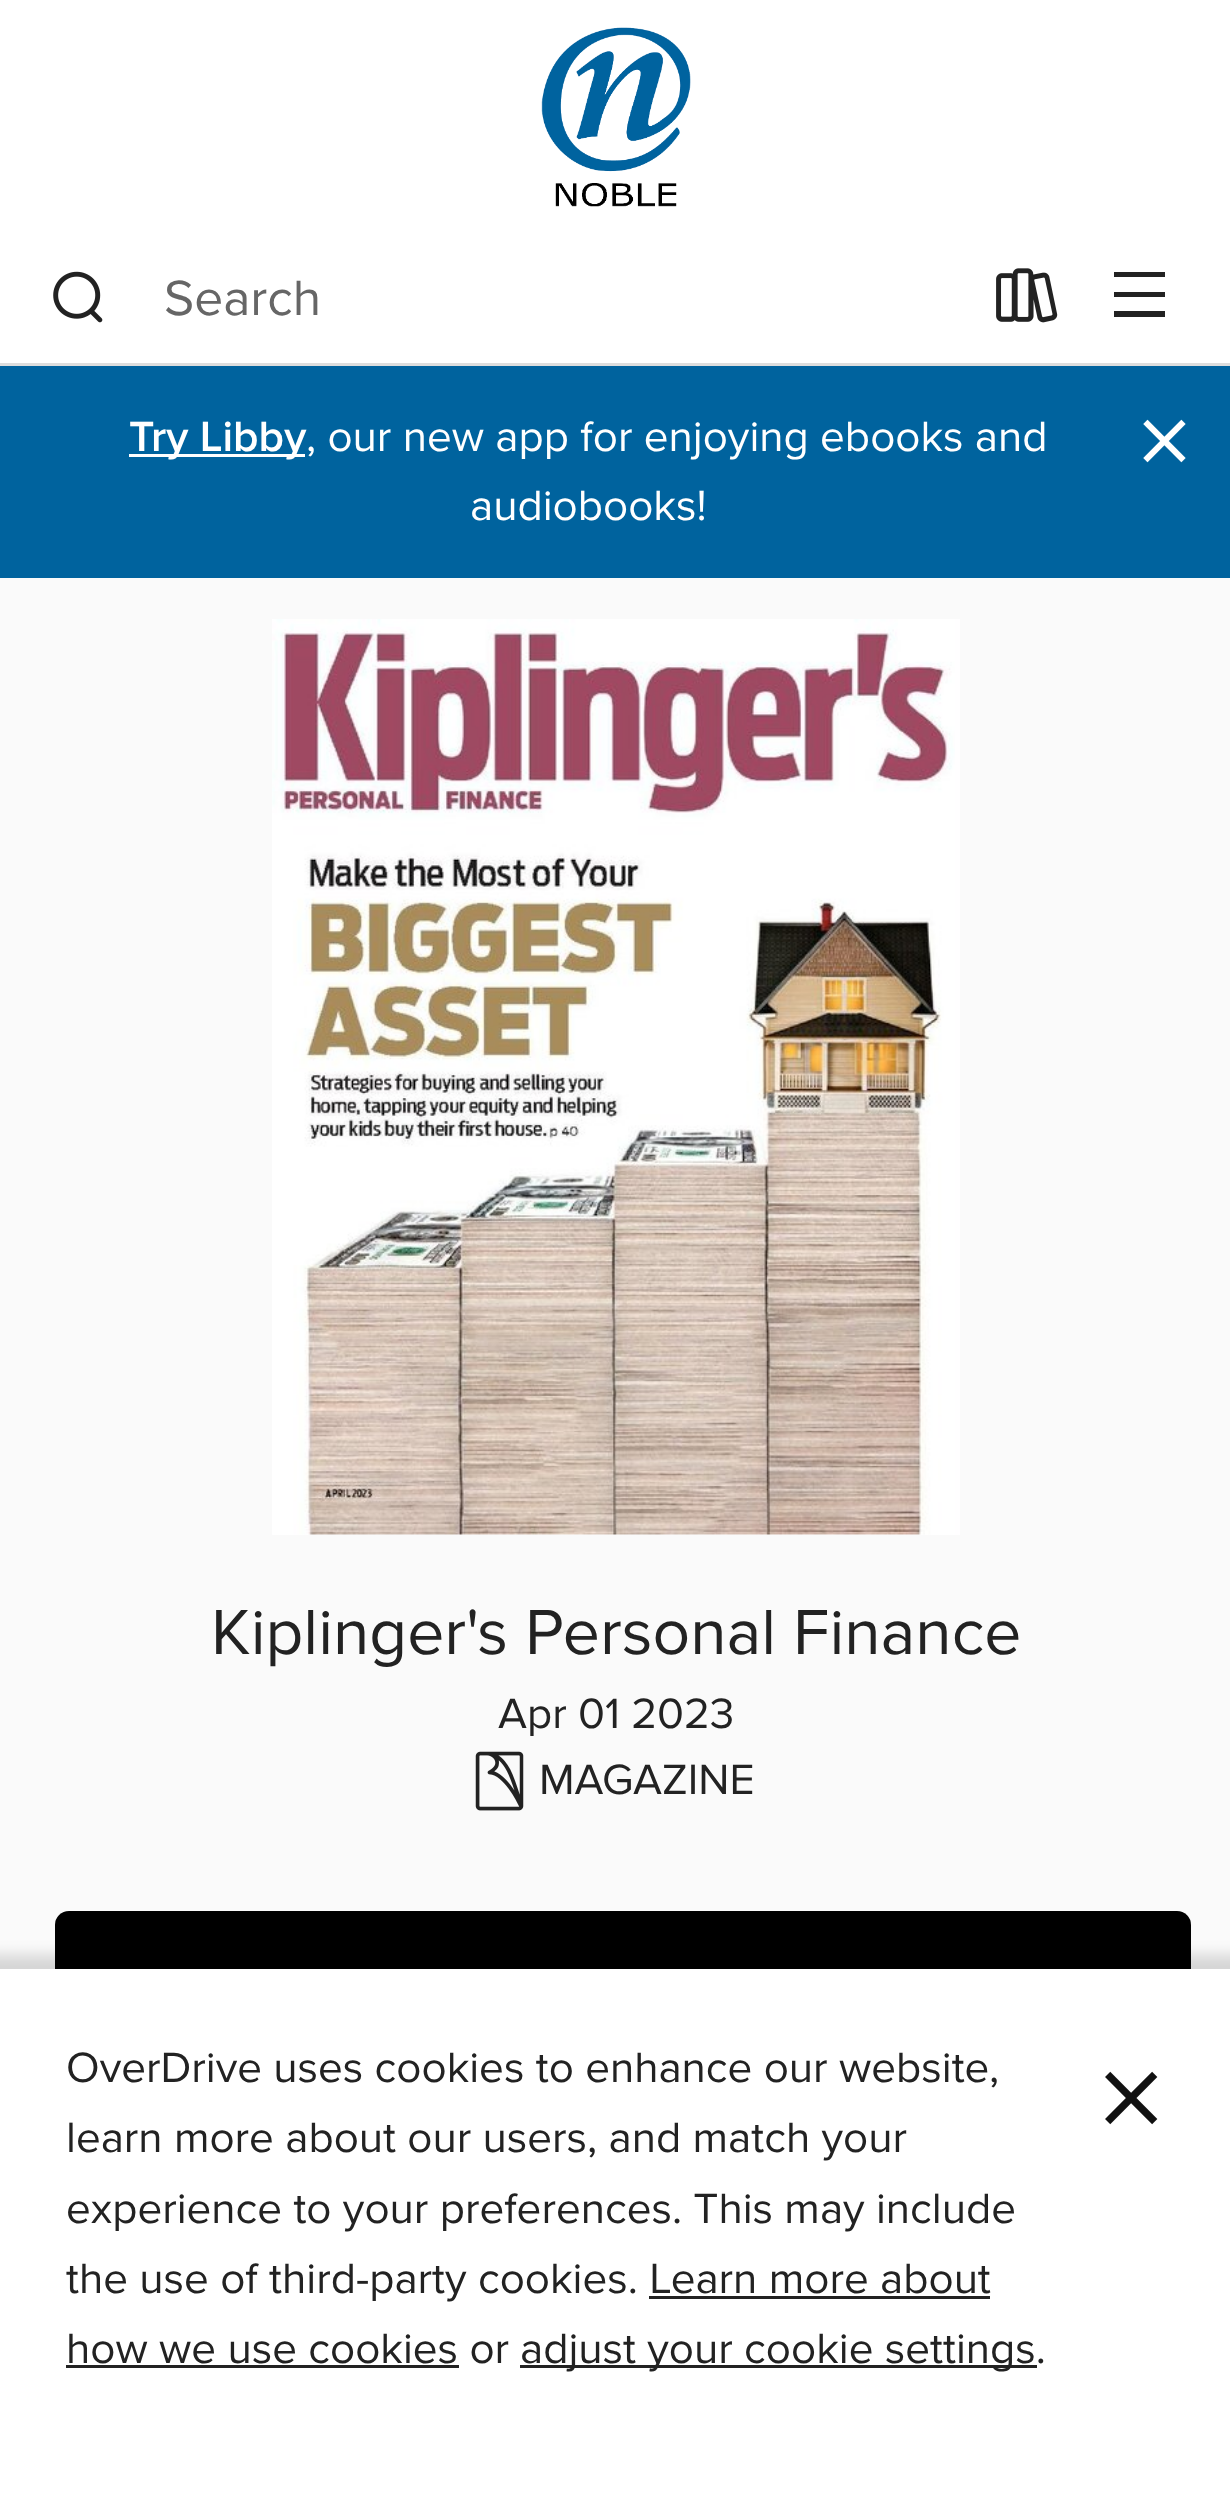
<svg xmlns="http://www.w3.org/2000/svg" width="1230" height="2506" viewBox="0 0 1230 2506">
  <defs>
    <filter id="blur1" x="-50%" y="-200%" width="200%" height="500%"><feGaussianBlur stdDeviation="7"/></filter>
  </defs>
  <rect width="100%" height="100%" fill="#fafafa"/>
  <rect x="0" y="0" width="1230" height="363" fill="#ffffff"/>
  <image x="541" y="27" width="150" height="180" href="img1.png"/>
  <rect x="0" y="363" width="1230" height="3" fill="#dddddd"/>
  <image x="53" y="271" width="50" height="52" href="img2.png"/>
  <text x="164" y="315" font-family="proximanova" font-size="51.5" fill="#666666">Search</text>
  <image x="996" y="268" width="62" height="55" href="img3.png"/>
  <path d="M1114 272V277H1165V272ZM1114 297H1165V292H1114ZM1114 317H1165V311H1114Z" fill="#222222"/>
  <rect x="0" y="366" width="1230" height="212" fill="#00639e"/>
  <rect x="129" y="454" width="176" height="3" fill="#ffffff"/>
  <text x="129" y="451" font-family="Proxima Nova" font-size="44" font-weight="600" fill="#ffffff">Try Libby</text>
  <text x="306" y="451" font-family="proximanova" font-size="44" fill="#ffffff">, our new app for enjoying ebooks and</text>
  <text x="470" y="520" font-family="proximanova" font-size="44" fill="#ffffff">audiobooks!</text>
  <text x="1136" y="479" font-family="proximanova" font-size="114" fill="#ffffff">×</text>
  <rect x="272" y="619" width="688" height="916" fill="#fffeff"/>
  <image x="272" y="619" width="683" height="916" href="img4.png"/>
  <text x="211" y="1654" font-family="proximanova" font-size="66" fill="#222222">Kiplinger's Personal Finance</text>
  <text x="498" y="1728" font-family="proximanova" font-size="44" fill="#222222">Apr 01 2023</text>
  <image x="475" y="1751" width="49" height="60" href="img5.png"/>
  <text x="539" y="1794" font-family="proximanova" font-size="44" fill="#222222">MAGAZINE</text>
  <rect x="55" y="1911" width="1136" height="143" rx="14" fill="#000000"/>
  <rect x="-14" y="1955" width="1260" height="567" fill="#000000" fill-opacity="0.15" filter="url(#blur1)"/>
  <rect x="0" y="1969" width="1230" height="537" fill="#ffffff"/>
  <text x="66" y="2082" font-family="proximanova" font-size="44" fill="#222222">OverDrive uses cookies to enhance our website,</text>
  <text x="66" y="2152" font-family="proximanova" font-size="44" fill="#222222">learn more about our users, and match your</text>
  <text x="66" y="2223" font-family="proximanova" font-size="44" fill="#222222">experience to your preferences. This may include</text>
  <text x="66" y="2293" font-family="proximanova" font-size="44" fill="#222222">the use of third-party cookies. Learn more about</text>
  <rect x="649" y="2296" width="341" height="3" fill="#222222"/>
  <text x="66" y="2363" font-family="proximanova" font-size="44" fill="#222222">how we use cookies or</text>
  <rect x="66" y="2365" width="393" height="3" fill="#222222"/>
  <rect x="520" y="2365" width="517" height="3" fill="#222222"/>
  <text x="520" y="2363" font-family="proximanova" font-size="44" fill="#222222">adjust your cookie settings.</text>
  <text x="1096" y="2145" font-family="proximanova" font-size="141" fill="#111111">×</text>
</svg>
